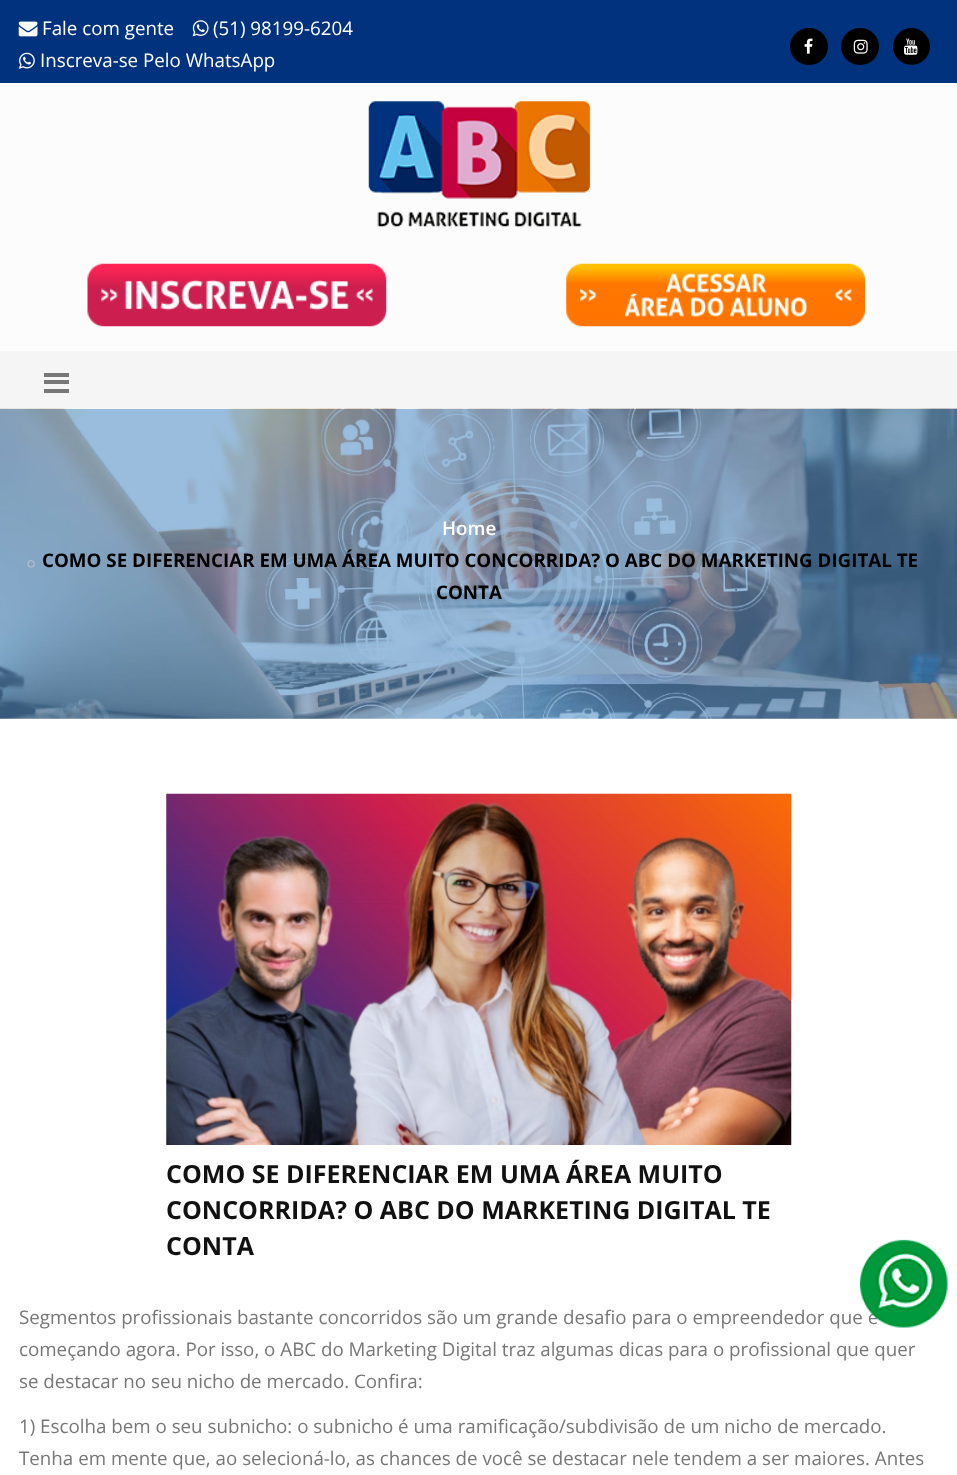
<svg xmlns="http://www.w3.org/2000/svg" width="957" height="1475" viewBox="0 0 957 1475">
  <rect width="100%" height="100%" fill="#ffffff"/>
  <rect x="0" y="0" width="957" height="83" fill="#00327e"/>
  <image x="18" y="21" width="20" height="16" href="img1.png"/>
  <text x="42" y="35" font-family="Open Sans" font-size="18.75" fill="#ffffff">Fale com gente</text>
  <image x="192" y="20" width="17" height="17" href="img2.png"/>
  <text x="213" y="35" font-family="Open Sans" font-size="18.75" fill="#ffffff">(51) 98199-6204</text>
  <image x="18" y="52" width="17" height="17" href="img3.png"/>
  <text x="40" y="67" font-family="Open Sans" font-size="18.75" fill="#ffffff">Inscreva-se Pelo WhatsApp</text>
  <rect x="790" y="28" width="38" height="37" rx="18.5" fill="#000000"/>
  <image x="804" y="38" width="9" height="16" href="img4.png"/>
  <rect x="841" y="28" width="38" height="37" rx="18.5" fill="#000000"/>
  <image x="853" y="39" width="15" height="15" href="img5.png"/>
  <circle cx="911.5" cy="46.5" r="18.5" fill="#000000"/>
  <image x="904" y="38" width="14" height="17" href="img6.png"/>
  <rect x="0" y="83" width="957" height="268" fill="#fcfcfc"/>
  <image x="368" y="101" width="223" height="126" href="img7.png"/>
  <image x="87" y="263" width="300" height="64" href="img8.png"/>
  <image x="566" y="263" width="299" height="64" href="img9.png"/>
  <rect x="0" y="351" width="957" height="58" fill="#f5f5f5"/>
  <rect x="44" y="373" width="25" height="4" fill="#777777"/>
  <rect x="44" y="380" width="25" height="4" fill="#777777"/>
  <rect x="44" y="389" width="25" height="4" fill="#777777"/>
  <image x="0" y="408" width="957" height="311" href="img10.png"/>
  <text x="442" y="535" font-family="Open Sans" font-size="18.75" font-weight="600" fill="#ffffff">Home</text>
  <image x="27" y="560" width="8" height="8" href="img11.png"/>
  <text x="42" y="567" font-family="Open Sans" font-size="18.75" font-weight="bold" fill="#000000">COMO SE DIFERENCIAR EM UMA ÁREA MUITO CONCORRIDA? O ABC DO MARKETING DIGITAL TE</text>
  <text x="436" y="599" font-family="Open Sans" font-size="18.75" font-weight="bold" fill="#000000">CONTA</text>
  <image x="166" y="793" width="626" height="352" href="img12.png"/>
  <text x="166" y="1183" font-family="Open Sans" font-size="25" font-weight="bold" fill="#111111">COMO SE DIFERENCIAR EM UMA ÁREA MUITO</text>
  <text x="166" y="1219" font-family="Open Sans" font-size="25" font-weight="bold" fill="#111111">CONCORRIDA? O ABC DO MARKETING DIGITAL TE</text>
  <text x="166" y="1255" font-family="Open Sans" font-size="25" font-weight="bold" fill="#111111">CONTA</text>
  <text x="19" y="1324" font-family="Open Sans" font-size="18.75" fill="#777777">Segmentos profissionais bastante concorridos são um grande desafio para o empreendedor que e</text>
  <text x="19" y="1356" font-family="Open Sans" font-size="18.75" fill="#777777">começando agora. Por isso, o ABC do Marketing Digital traz algumas dicas para o profissional que quer</text>
  <text x="19" y="1388" font-family="Open Sans" font-size="18.75" fill="#777777">se destacar no seu nicho de mercado. Confira:</text>
  <text x="19" y="1433" font-family="Open Sans" font-size="18.75" fill="#777777">1) Escolha bem o seu subnicho: o subnicho é uma ramificação/subdivisão de um nicho de mercado.</text>
  <text x="19" y="1465" font-family="Open Sans" font-size="18.75" fill="#777777">Tenha em mente que, ao selecioná-lo, as chances de você se destacar nele tendem a ser maiores. Antes</text>
  <image x="860" y="1239" width="88" height="89" href="img13.png"/>
</svg>
